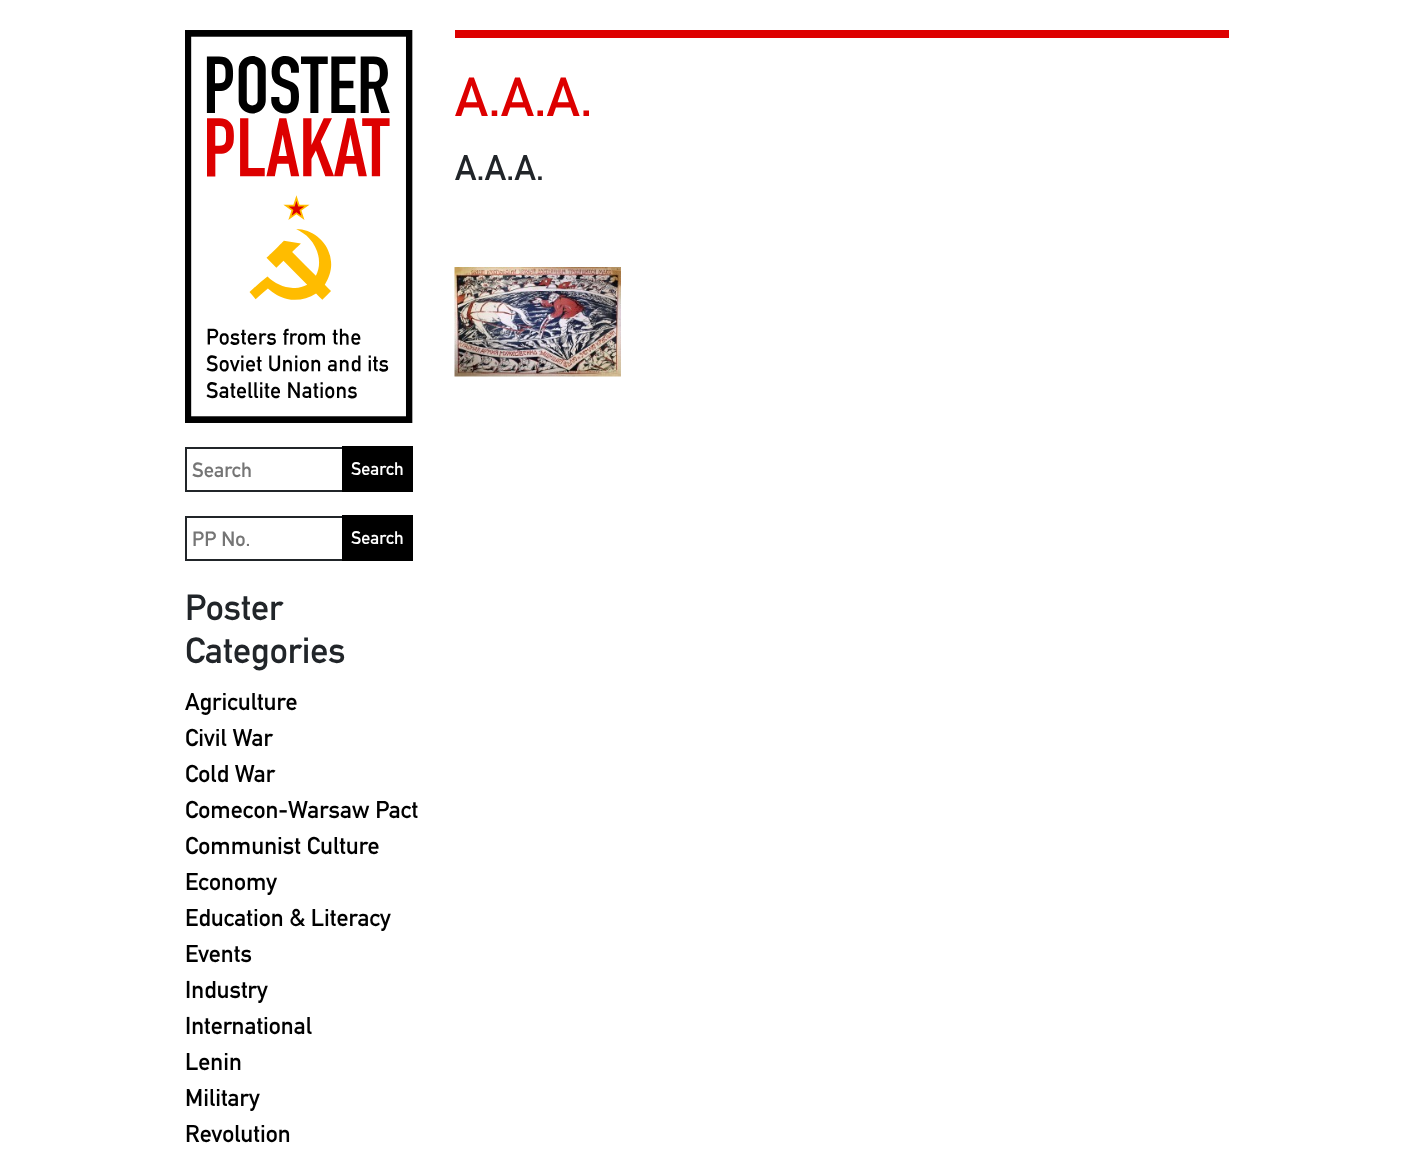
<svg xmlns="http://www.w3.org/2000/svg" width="1413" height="1167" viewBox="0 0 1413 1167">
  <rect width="100%" height="100%" fill="#ffffff"/>
  <rect x="455" y="30" width="774" height="8" fill="#dd0000"/>
  <text x="455" y="116" font-family="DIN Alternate" font-size="54" font-weight="bold" fill="#dd0000">A.A.A.</text>
  <text x="455" y="180" font-family="DIN Alternate" font-size="35" font-weight="bold" fill="#212529">А.А.А.</text>
  <image x="454" y="267" width="167" height="110" href="img1.png"/>
  <image x="185" y="30" width="228" height="393" href="img2.png"/>
  <rect x="186" y="448" width="226" height="43" fill="none" stroke="#212529" stroke-width="2"/>
  <text x="192" y="477" font-family="DIN Alternate" font-size="20.5" font-weight="bold" fill="#757575">Search</text>
  <rect x="342" y="446" width="71" height="46" fill="#000000"/>
  <text x="351" y="475" font-family="DIN Alternate" font-size="18" font-weight="bold" fill="#ffffff">Search</text>
  <rect x="186" y="517" width="226" height="43" fill="none" stroke="#212529" stroke-width="2"/>
  <text x="192" y="546" font-family="DIN Alternate" font-size="20.5" font-weight="bold" fill="#757575">PP No.</text>
  <rect x="342" y="515" width="71" height="46" fill="#000000"/>
  <text x="351" y="544" font-family="DIN Alternate" font-size="18" font-weight="bold" fill="#ffffff">Search</text>
  <text x="185" y="620" font-family="DIN Alternate" font-size="36" font-weight="bold" fill="#212529">Poster</text>
  <text x="185" y="663" font-family="DIN Alternate" font-size="36" font-weight="bold" fill="#212529">Categories</text>
  <text x="185" y="710" font-family="DIN Alternate" font-size="24" font-weight="bold" fill="#000000">Agriculture</text>
  <text x="185" y="746" font-family="DIN Alternate" font-size="24" font-weight="bold" fill="#000000">Civil War</text>
  <text x="185" y="782" font-family="DIN Alternate" font-size="24" font-weight="bold" fill="#000000">Cold War</text>
  <text x="185" y="818" font-family="DIN Alternate" font-size="24" font-weight="bold" fill="#000000">Comecon-Warsaw Pact</text>
  <text x="185" y="854" font-family="DIN Alternate" font-size="24" font-weight="bold" fill="#000000">Communist Culture</text>
  <text x="185" y="890" font-family="DIN Alternate" font-size="24" font-weight="bold" fill="#000000">Economy</text>
  <text x="185" y="926" font-family="DIN Alternate" font-size="24" font-weight="bold" fill="#000000">Education &amp; Literacy</text>
  <text x="185" y="962" font-family="DIN Alternate" font-size="24" font-weight="bold" fill="#000000">Events</text>
  <text x="185" y="998" font-family="DIN Alternate" font-size="24" font-weight="bold" fill="#000000">Industry</text>
  <text x="185" y="1034" font-family="DIN Alternate" font-size="24" font-weight="bold" fill="#000000">International</text>
  <text x="185" y="1070" font-family="DIN Alternate" font-size="24" font-weight="bold" fill="#000000">Lenin</text>
  <text x="185" y="1106" font-family="DIN Alternate" font-size="24" font-weight="bold" fill="#000000">Military</text>
  <text x="185" y="1142" font-family="DIN Alternate" font-size="24" font-weight="bold" fill="#000000">Revolution</text>
</svg>
